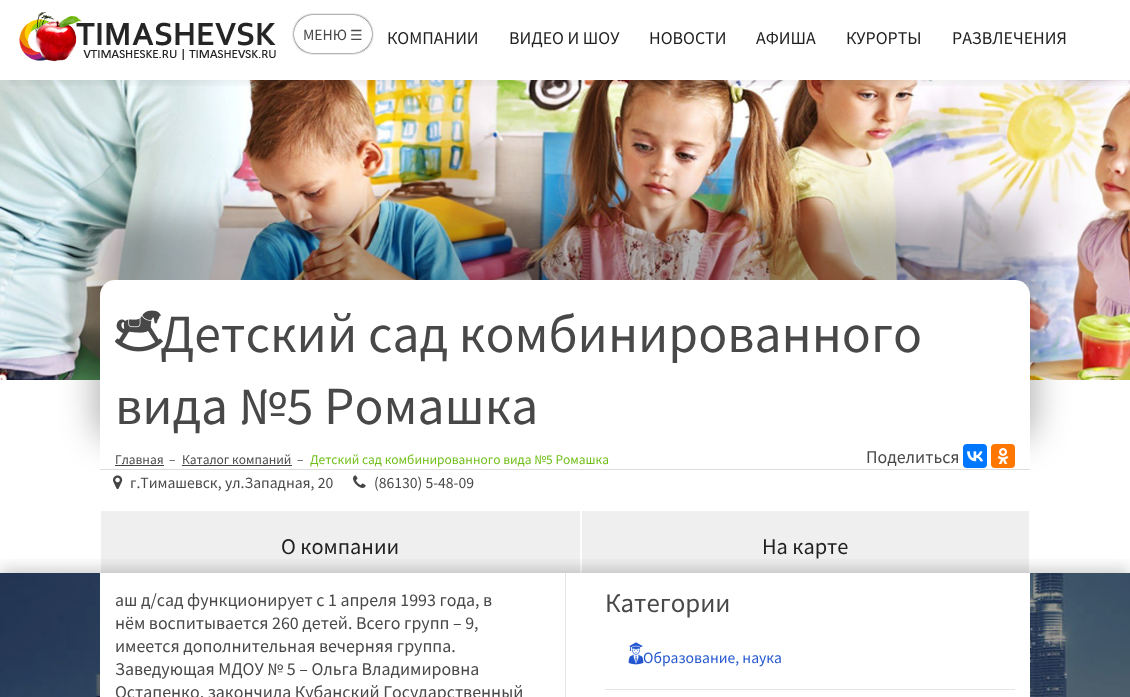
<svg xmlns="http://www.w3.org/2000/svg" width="1130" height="697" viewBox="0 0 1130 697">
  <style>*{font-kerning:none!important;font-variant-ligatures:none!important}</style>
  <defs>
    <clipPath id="clip1"><rect x="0" y="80" width="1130" height="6"/></clipPath>
    <filter id="blur1" x="-50%" y="-200%" width="200%" height="500%"><feGaussianBlur stdDeviation="7.5"/></filter>
    <filter id="blur2" x="-50%" y="-200%" width="200%" height="500%"><feGaussianBlur stdDeviation="1"/></filter>
    <filter id="blur3" x="-50%" y="-200%" width="200%" height="500%"><feGaussianBlur stdDeviation="17.5"/></filter>
    <clipPath id="clip2"><rect x="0" y="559" width="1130" height="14"/></clipPath>
    <filter id="blur4" x="-50%" y="-200%" width="200%" height="500%"><feGaussianBlur stdDeviation="8"/></filter>
  </defs>
  <rect width="100%" height="100%" fill="#ffffff"/>
  <image x="0" y="80" width="1130" height="300" href="img2.png"/>
  <g clip-path="url(#clip1)">
    <rect x="0" y="0" width="1130" height="80" fill="#000000" fill-opacity="0.1" filter="url(#blur1)"/>
  </g>
  <image x="19" y="12" width="257" height="50" href="img1.png"/>
  <rect x="294" y="15" width="78" height="38" rx="19" fill="#222222" filter="url(#blur2)"/>
  <rect x="294.5" y="15.5" width="77" height="37" rx="18.5" fill="#ffffff" stroke="#ffffff"/>
  <text x="303" y="40" font-family="Noto Sans SC" font-size="14" fill="#484848">МЕНЮ</text>
  <text x="350" y="40" font-family="DejaVu Sans" font-size="14" fill="#484848">☰</text>
  <text x="387" y="44" font-family="Noto Sans SC" font-size="16" fill="#212121">КОМПАНИИ</text>
  <text x="509" y="44" font-family="Noto Sans SC" font-size="16" fill="#212121">ВИДЕО И ШОУ</text>
  <text x="649" y="44" font-family="Noto Sans SC" font-size="16" fill="#212121">НОВОСТИ</text>
  <text x="756" y="44" font-family="Noto Sans SC" font-size="16" fill="#212121">АФИША</text>
  <text x="846" y="44" font-family="Noto Sans SC" font-size="16" fill="#212121">КУРОРТЫ</text>
  <text x="952" y="44" font-family="Noto Sans SC" font-size="16" fill="#212121">РАЗВЛЕЧЕНИЯ</text>
  <rect x="95" y="215" width="940" height="225" rx="20" fill="#000000" fill-opacity="0.3" filter="url(#blur3)"/>
  <rect x="100" y="280" width="930" height="215" rx="15" fill="#ffffff"/>
  <image x="115" y="310" width="48" height="42" href="img3.png"/>
  <text x="160" y="352" font-family="Noto Sans SC" font-size="48" fill="#484848">Детский сад комбинированного</text>
  <text x="115" y="424" font-family="Noto Sans SC" font-size="48" fill="#484848">вида №5 Ромашка</text>
  <text x="115" y="464" font-family="Noto Sans SC" font-size="12" fill="#484848">Главная</text>
  <rect x="115" y="465" width="49" height="1" fill="#444444"/>
  <text x="169" y="464" font-family="Noto Sans SC" font-size="12" fill="#484848">–</text>
  <text x="182" y="464" font-family="Noto Sans SC" font-size="12" fill="#484848">Каталог компаний</text>
  <rect x="182" y="465" width="110" height="1" fill="#444444"/>
  <text x="297" y="464" font-family="Noto Sans SC" font-size="12" fill="#484848">–</text>
  <text x="310" y="464" font-family="Noto Sans SC" font-size="12" fill="#6fbf17">Детский сад комбинированного вида №5 Ромашка</text>
  <text x="866" y="463" font-family="Noto Sans SC" font-size="16" fill="#484848">Поделиться</text>
  <rect x="963" y="444" width="24" height="24" rx="4" fill="#0077ff"/>
  <image x="967" y="451" width="16" height="11" href="img4.png"/>
  <rect x="991" y="444" width="24" height="24" rx="4" fill="#ff7700"/>
  <image x="997" y="448" width="12" height="16" href="img5.png"/>
  <rect x="100" y="469" width="930" height="1" fill="#dddddd"/>
  <image x="113" y="475" width="10" height="15" href="img6.png"/>
  <text x="130" y="488" font-family="Noto Sans SC" font-size="14" fill="#484848">г.Тимашевск,</text>
  <text x="225" y="488" font-family="Noto Sans SC" font-size="14" fill="#484848">ул.Западная, 20</text>
  <image x="353" y="475" width="13" height="13" href="img7.png"/>
  <text x="374" y="488" font-family="Noto Sans SC" font-size="14" fill="#484848">(86130) 5-48-09</text>
  <rect x="101" y="511" width="479" height="62" fill="#efefef"/>
  <image x="0" y="573" width="1130" height="124" href="img9.png"/>
  <rect x="100.5" y="510.5" width="480" height="71" fill="none" stroke="#ffffff"/>
  <text x="281" y="554" font-family="Noto Sans SC" font-size="20" fill="#212121">О компании</text>
  <rect x="582" y="511" width="447" height="62" fill="#efefef"/>
  <rect x="581.5" y="510.5" width="448" height="71" fill="none" stroke="#ffffff"/>
  <text x="762" y="554" font-family="Noto Sans SC" font-size="20" fill="#212121">На карте</text>
  <g clip-path="url(#clip2)">
    <rect x="0" y="569" width="1130" height="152" fill="#000000" fill-opacity="0.2" filter="url(#blur4)"/>
  </g>
  <rect x="100" y="573" width="930" height="124" fill="#ffffff"/>
  <rect x="565" y="573" width="1" height="124" fill="#e5e5e5"/>
  <text x="115" y="606" font-family="Noto Sans SC" font-size="16" fill="#484848">аш д/сад функционирует с 1 апреля 1993 года, в</text>
  <text x="115" y="629" font-family="Noto Sans SC" font-size="16" fill="#484848">нём воспитывается 260 детей. Всего групп – 9,</text>
  <text x="115" y="652" font-family="Noto Sans SC" font-size="16" fill="#484848">имеется дополнительная вечерняя группа.</text>
  <text x="115" y="675" font-family="Noto Sans SC" font-size="16" fill="#484848">Заведующая МДОУ № 5 – Ольга Владимировна</text>
  <text x="115" y="698" font-family="Noto Sans SC" font-size="16" fill="#484848">Остапенко, закончила Кубанский Государственный</text>
  <rect x="605" y="689" width="410" height="1" fill="#e5e5e5"/>
  <text x="605" y="612" font-family="Noto Sans SC" font-size="24" fill="#484848">Категории</text>
  <image x="628" y="642" width="16" height="23" href="img8.png"/>
  <text x="643" y="663" font-family="Noto Sans SC" font-size="14" fill="#2457cf">Образование, наука</text>
</svg>
